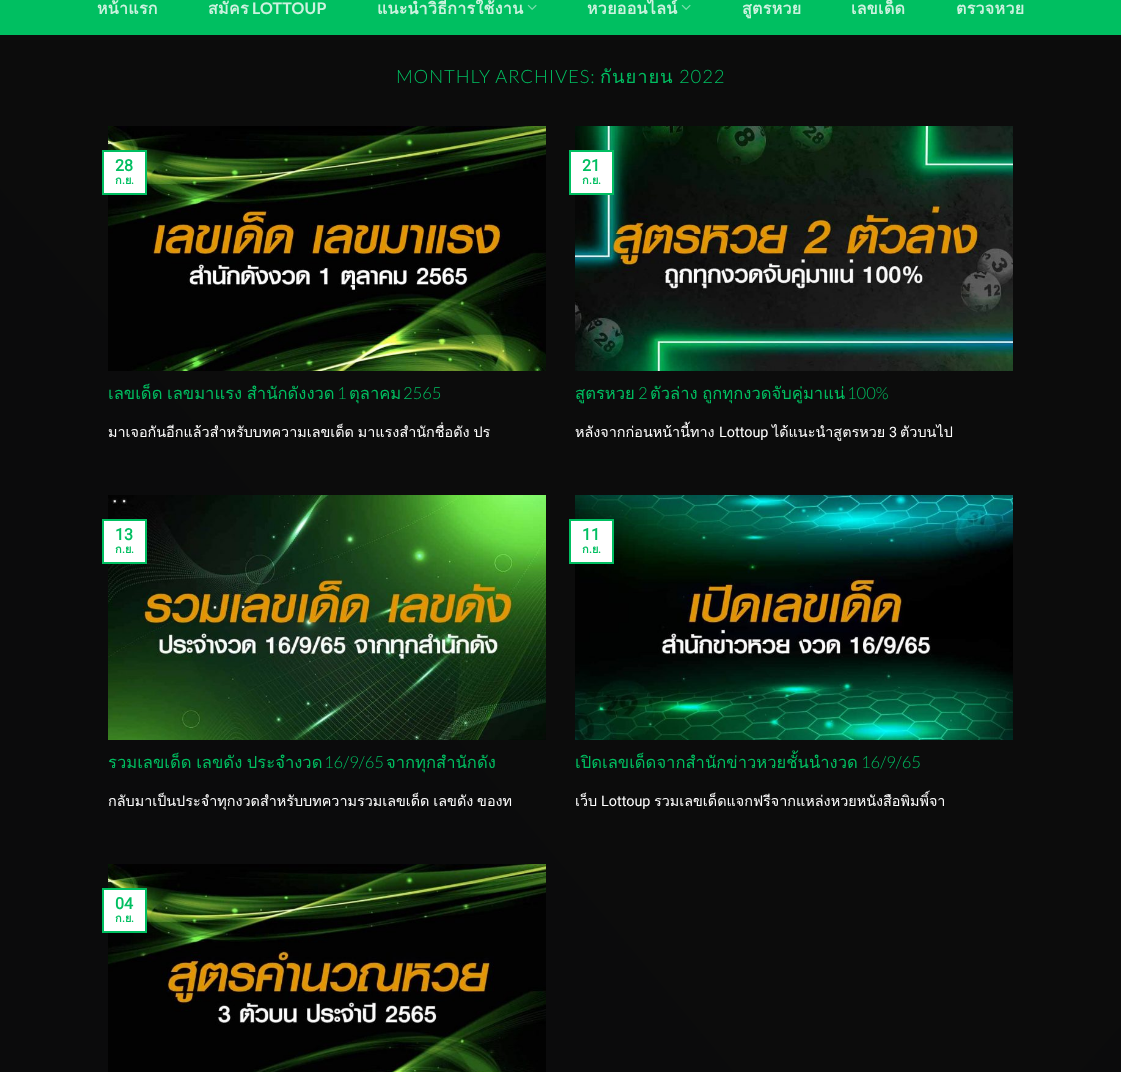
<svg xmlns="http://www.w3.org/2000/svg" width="1121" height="1072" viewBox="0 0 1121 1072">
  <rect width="100%" height="100%" fill="#ffffff"/>
  <image x="0" y="35" width="1121" height="1037" href="img1.png"/>
  <rect x="0" y="0" width="1121" height="35" fill="#00bf61"/>
  <text x="97" y="14" font-family="Loma" font-size="16" font-weight="bold" letter-spacing="0.3" fill="#ccf2df">หน้าแรก</text>
  <text x="208" y="14" font-family="Loma" font-size="16" font-weight="bold" letter-spacing="0.3" fill="#ccf2df">สมัคร</text>
  <text x="252" y="14" font-family="Lato" font-size="16" font-weight="bold" letter-spacing="0.3" fill="#ccf2df">LOTTOUP</text>
  <text x="377" y="14" font-family="Loma" font-size="16" font-weight="bold" letter-spacing="0.3" fill="#ccf2df">แนะนำวิธีการใช้งาน</text>
  <image x="527" y="4" width="10" height="6" href="img2.png"/>
  <text x="587" y="14" font-family="Loma" font-size="16" font-weight="bold" letter-spacing="0.3" fill="#ccf2df">หวยออนไลน์</text>
  <image x="681" y="4" width="10" height="6" href="img2.png"/>
  <text x="742" y="14" font-family="Loma" font-size="16" font-weight="bold" letter-spacing="0.3" fill="#ccf2df">สูตรหวย</text>
  <text x="851" y="14" font-family="Loma" font-size="16" font-weight="bold" letter-spacing="0.3" fill="#ccf2df">เลขเด็ด</text>
  <text x="956" y="14" font-family="Loma" font-size="16" font-weight="bold" letter-spacing="0.3" fill="#ccf2df">ตรวจหวย</text>
  <text x="396" y="83" font-family="Lato" font-size="18.4" font-weight="300" letter-spacing="0.9" fill="#00bf61">MONTHLY ARCHIVES:</text>
  <text x="600" y="83" font-family="Loma" font-size="18.4" letter-spacing="0.9" fill="#00bf61">กันยายน</text>
  <text x="679" y="83" font-family="Lato" font-size="18.4" font-weight="300" letter-spacing="0.9" fill="#00bf61">2022</text>
  <image x="108" y="126" width="438" height="245" href="img3.png"/>
  <rect x="103" y="151" width="43" height="43" fill="#ffffff" stroke="#00bf61" stroke-width="2"/>
  <text x="115" y="171" font-family="Roboto" font-size="16" font-weight="bold" fill="#00bf61">28</text>
  <text x="115" y="184" font-family="Loma" font-size="11" font-weight="bold" fill="#00bf61">ก</text>
  <text x="122" y="184" font-family="Roboto" font-size="11" font-weight="bold" fill="#00bf61">.</text>
  <text x="125" y="184" font-family="Loma" font-size="11" font-weight="bold" fill="#00bf61">ย</text>
  <text x="131" y="184" font-family="Roboto" font-size="11" font-weight="bold" fill="#00bf61">.</text>
  <text x="108" y="399" word-spacing="-1" font-family="Loma" font-size="16.6" fill="#00bf61">เลขเด็ด เลขมาแรง สำนักดังงวด</text>
  <text x="337" y="399" font-family="Lato" font-size="16.6" font-weight="300" fill="#00bf61">1</text>
  <text x="349" y="399" font-family="Loma" font-size="16.6" fill="#00bf61">ตุลาคม</text>
  <text x="403" y="399" font-family="Lato" font-size="16.6" font-weight="300" fill="#00bf61">2565</text>
  <text x="108" y="437" word-spacing="-1" font-family="Loma" font-size="14.4" fill="#ffffff">มาเจอกันอีกแล้วสำหรับบทความเลขเด็ด มาแรงสำนักชื่อดัง ปร</text>
  <image x="575" y="126" width="438" height="245" href="img4.png"/>
  <rect x="570" y="151" width="43" height="43" fill="#ffffff" stroke="#00bf61" stroke-width="2"/>
  <text x="582" y="171" font-family="Roboto" font-size="16" font-weight="bold" fill="#00bf61">21</text>
  <text x="582" y="184" font-family="Loma" font-size="11" font-weight="bold" fill="#00bf61">ก</text>
  <text x="589" y="184" font-family="Roboto" font-size="11" font-weight="bold" fill="#00bf61">.</text>
  <text x="592" y="184" font-family="Loma" font-size="11" font-weight="bold" fill="#00bf61">ย</text>
  <text x="598" y="184" font-family="Roboto" font-size="11" font-weight="bold" fill="#00bf61">.</text>
  <text x="575" y="399" font-family="Loma" font-size="16.6" fill="#00bf61">สูตรหวย</text>
  <text x="638" y="399" font-family="Lato" font-size="16.6" font-weight="300" fill="#00bf61">2</text>
  <text x="650" y="399" word-spacing="-1" font-family="Loma" font-size="16.6" fill="#00bf61">ตัวล่าง ถูกทุกงวดจับคู่มาแน่</text>
  <text x="847" y="399" font-family="Lato" font-size="16.6" font-weight="300" fill="#00bf61">100%</text>
  <text x="575" y="437" font-family="Loma" font-size="14.4" fill="#ffffff">หลังจากก่อนหน้านี้ทาง</text>
  <text x="719" y="437" font-family="Roboto" font-size="14.4" fill="#ffffff">Lottoup</text>
  <text x="772" y="437" font-family="Loma" font-size="14.4" fill="#ffffff">ได้แนะนำสูตรหวย</text>
  <text x="889" y="437" font-family="Roboto" font-size="14.4" fill="#ffffff">3</text>
  <text x="900" y="437" font-family="Loma" font-size="14.4" fill="#ffffff">ตัวบนไป</text>
  <image x="108" y="495" width="438" height="245" href="img5.png"/>
  <rect x="103" y="520" width="43" height="43" fill="#ffffff" stroke="#00bf61" stroke-width="2"/>
  <text x="115" y="540" font-family="Roboto" font-size="16" font-weight="bold" fill="#00bf61">13</text>
  <text x="115" y="553" font-family="Loma" font-size="11" font-weight="bold" fill="#00bf61">ก</text>
  <text x="122" y="553" font-family="Roboto" font-size="11" font-weight="bold" fill="#00bf61">.</text>
  <text x="125" y="553" font-family="Loma" font-size="11" font-weight="bold" fill="#00bf61">ย</text>
  <text x="131" y="553" font-family="Roboto" font-size="11" font-weight="bold" fill="#00bf61">.</text>
  <text x="108" y="768" word-spacing="-1" font-family="Loma" font-size="16.6" fill="#00bf61">รวมเลขเด็ด เลขดัง ประจำงวด</text>
  <text x="324" y="768" font-family="Lato" font-size="16.6" font-weight="300" fill="#00bf61">16/9/65</text>
  <text x="386" y="768" font-family="Loma" font-size="16.6" fill="#00bf61">จากทุกสำนักดัง</text>
  <text x="108" y="806" word-spacing="-1" font-family="Loma" font-size="14.4" fill="#ffffff">กลับมาเป็นประจำทุกงวดสำหรับบทความรวมเลขเด็ด เลขดัง ของท</text>
  <image x="575" y="495" width="438" height="245" href="img6.png"/>
  <rect x="570" y="520" width="43" height="43" fill="#ffffff" stroke="#00bf61" stroke-width="2"/>
  <text x="582" y="540" font-family="Roboto" font-size="16" font-weight="bold" fill="#00bf61">11</text>
  <text x="582" y="553" font-family="Loma" font-size="11" font-weight="bold" fill="#00bf61">ก</text>
  <text x="589" y="553" font-family="Roboto" font-size="11" font-weight="bold" fill="#00bf61">.</text>
  <text x="592" y="553" font-family="Loma" font-size="11" font-weight="bold" fill="#00bf61">ย</text>
  <text x="598" y="553" font-family="Roboto" font-size="11" font-weight="bold" fill="#00bf61">.</text>
  <text x="575" y="768" font-family="Loma" font-size="16.6" fill="#00bf61">เปิดเลขเด็ดจากสำนักข่าวหวยชั้นนำงวด</text>
  <text x="861" y="768" font-family="Lato" font-size="16.6" font-weight="300" fill="#00bf61">16/9/65</text>
  <text x="575" y="806" font-family="Loma" font-size="14.4" fill="#ffffff">เว็บ</text>
  <text x="601" y="806" font-family="Roboto" font-size="14.4" fill="#ffffff">Lottoup</text>
  <text x="654" y="806" font-family="Loma" font-size="14.4" fill="#ffffff">รวมเลขเด็ดแจกฟรีจากแหล่งหวยหนังสือพิมพิ์จา</text>
  <image x="108" y="864" width="438" height="208" href="img7.png"/>
  <rect x="103" y="889" width="43" height="43" fill="#ffffff" stroke="#00bf61" stroke-width="2"/>
  <text x="115" y="909" font-family="Roboto" font-size="16" font-weight="bold" fill="#00bf61">04</text>
  <text x="115" y="922" font-family="Loma" font-size="11" font-weight="bold" fill="#00bf61">ก</text>
  <text x="122" y="922" font-family="Roboto" font-size="11" font-weight="bold" fill="#00bf61">.</text>
  <text x="125" y="922" font-family="Loma" font-size="11" font-weight="bold" fill="#00bf61">ย</text>
  <text x="131" y="922" font-family="Roboto" font-size="11" font-weight="bold" fill="#00bf61">.</text>
</svg>
